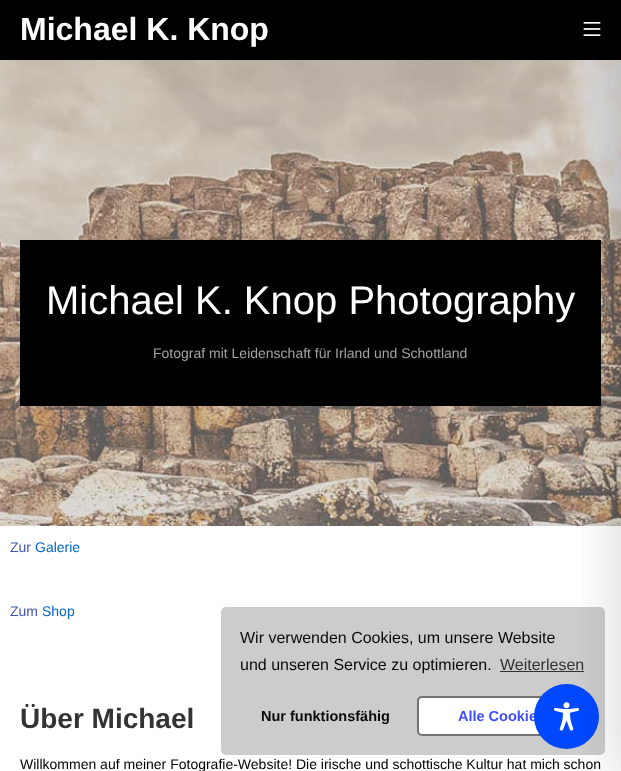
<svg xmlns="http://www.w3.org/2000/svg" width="621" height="771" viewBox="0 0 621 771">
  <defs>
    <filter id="blur1" x="-50%" y="-200%" width="200%" height="500%"><feGaussianBlur stdDeviation="30"/></filter>
  </defs>
  <rect width="100%" height="100%" fill="#ffffff"/>
  <rect x="0" y="0" width="621" height="60" fill="#000000"/>
  <image x="583" y="22" width="18" height="14" href="img1.png"/>
  <image x="0" y="60" width="621" height="466" href="img2.png"/>
  <rect x="20" y="240" width="581" height="166" fill="#000000"/>
  <rect x="221" y="607" width="384" height="148" rx="5" fill="#cccccc"/>
  <rect x="500" y="671" width="84" height="1" fill="#313131"/>
  <rect x="418" y="697" width="167" height="38" rx="4" fill="#ffffff" stroke="#727272" stroke-width="2"/>
  <text x="458" y="721" font-family="Liberation Sans" font-size="14.5" font-weight="bold" fill="#3f4efc">Alle Cookie</text>
  <circle cx="566.5" cy="716.5" r="32.5" fill="#0048fe"/>
  <image x="554" y="702" width="25" height="29" href="img3.png"/>
  <rect x="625" y="10" width="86" height="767" fill="#000000" fill-opacity="0.2" filter="url(#blur1)"/>
  <text x="20" y="40" font-family="Liberation Sans" font-size="32" font-weight="bold" fill="#ffffff">Michael K. Knop</text>
  <text x="46" y="314" font-family="Liberation Sans" font-size="40" fill="#ffffff">Michael K. Knop Photography</text>
  <text x="153" y="358" font-family="Liberation Sans" font-size="14" fill="#a3a3a3">Fotograf mit Leidenschaft für Irland und Schottland</text>
  <text x="10" y="552" font-family="Liberation Sans" font-size="14" fill="#4054b2">Zur</text>
  <text x="35" y="552" font-family="Liberation Sans" font-size="14" fill="#0066cc">Galerie</text>
  <text x="10" y="616" font-family="Liberation Sans" font-size="14" fill="#4054b2">Zum</text>
  <text x="42" y="616" font-family="Liberation Sans" font-size="14" fill="#0066cc">Shop</text>
  <text x="20" y="728" font-family="Liberation Sans" font-size="28" font-weight="bold" fill="#333333">Über Michael</text>
  <text x="20" y="769" font-family="Liberation Sans" font-size="14" fill="#000000">Willkommen auf meiner Fotografie-Website! Die irische und schottische Kultur hat mich schon</text>
  <text x="240" y="643" font-family="Liberation Sans" font-size="16" fill="#0a0a0a">Wir verwenden Cookies, um unsere Website</text>
  <text x="240" y="670" font-family="Liberation Sans" font-size="16" fill="#0a0a0a">und unseren Service zu optimieren.</text>
  <text x="500" y="670" font-family="Liberation Sans" font-size="16" fill="#333333">Weiterlesen</text>
  <text x="261" y="721" font-family="Liberation Sans" font-size="14.5" font-weight="bold" fill="#0a0a0a">Nur funktionsfähig</text>
</svg>
